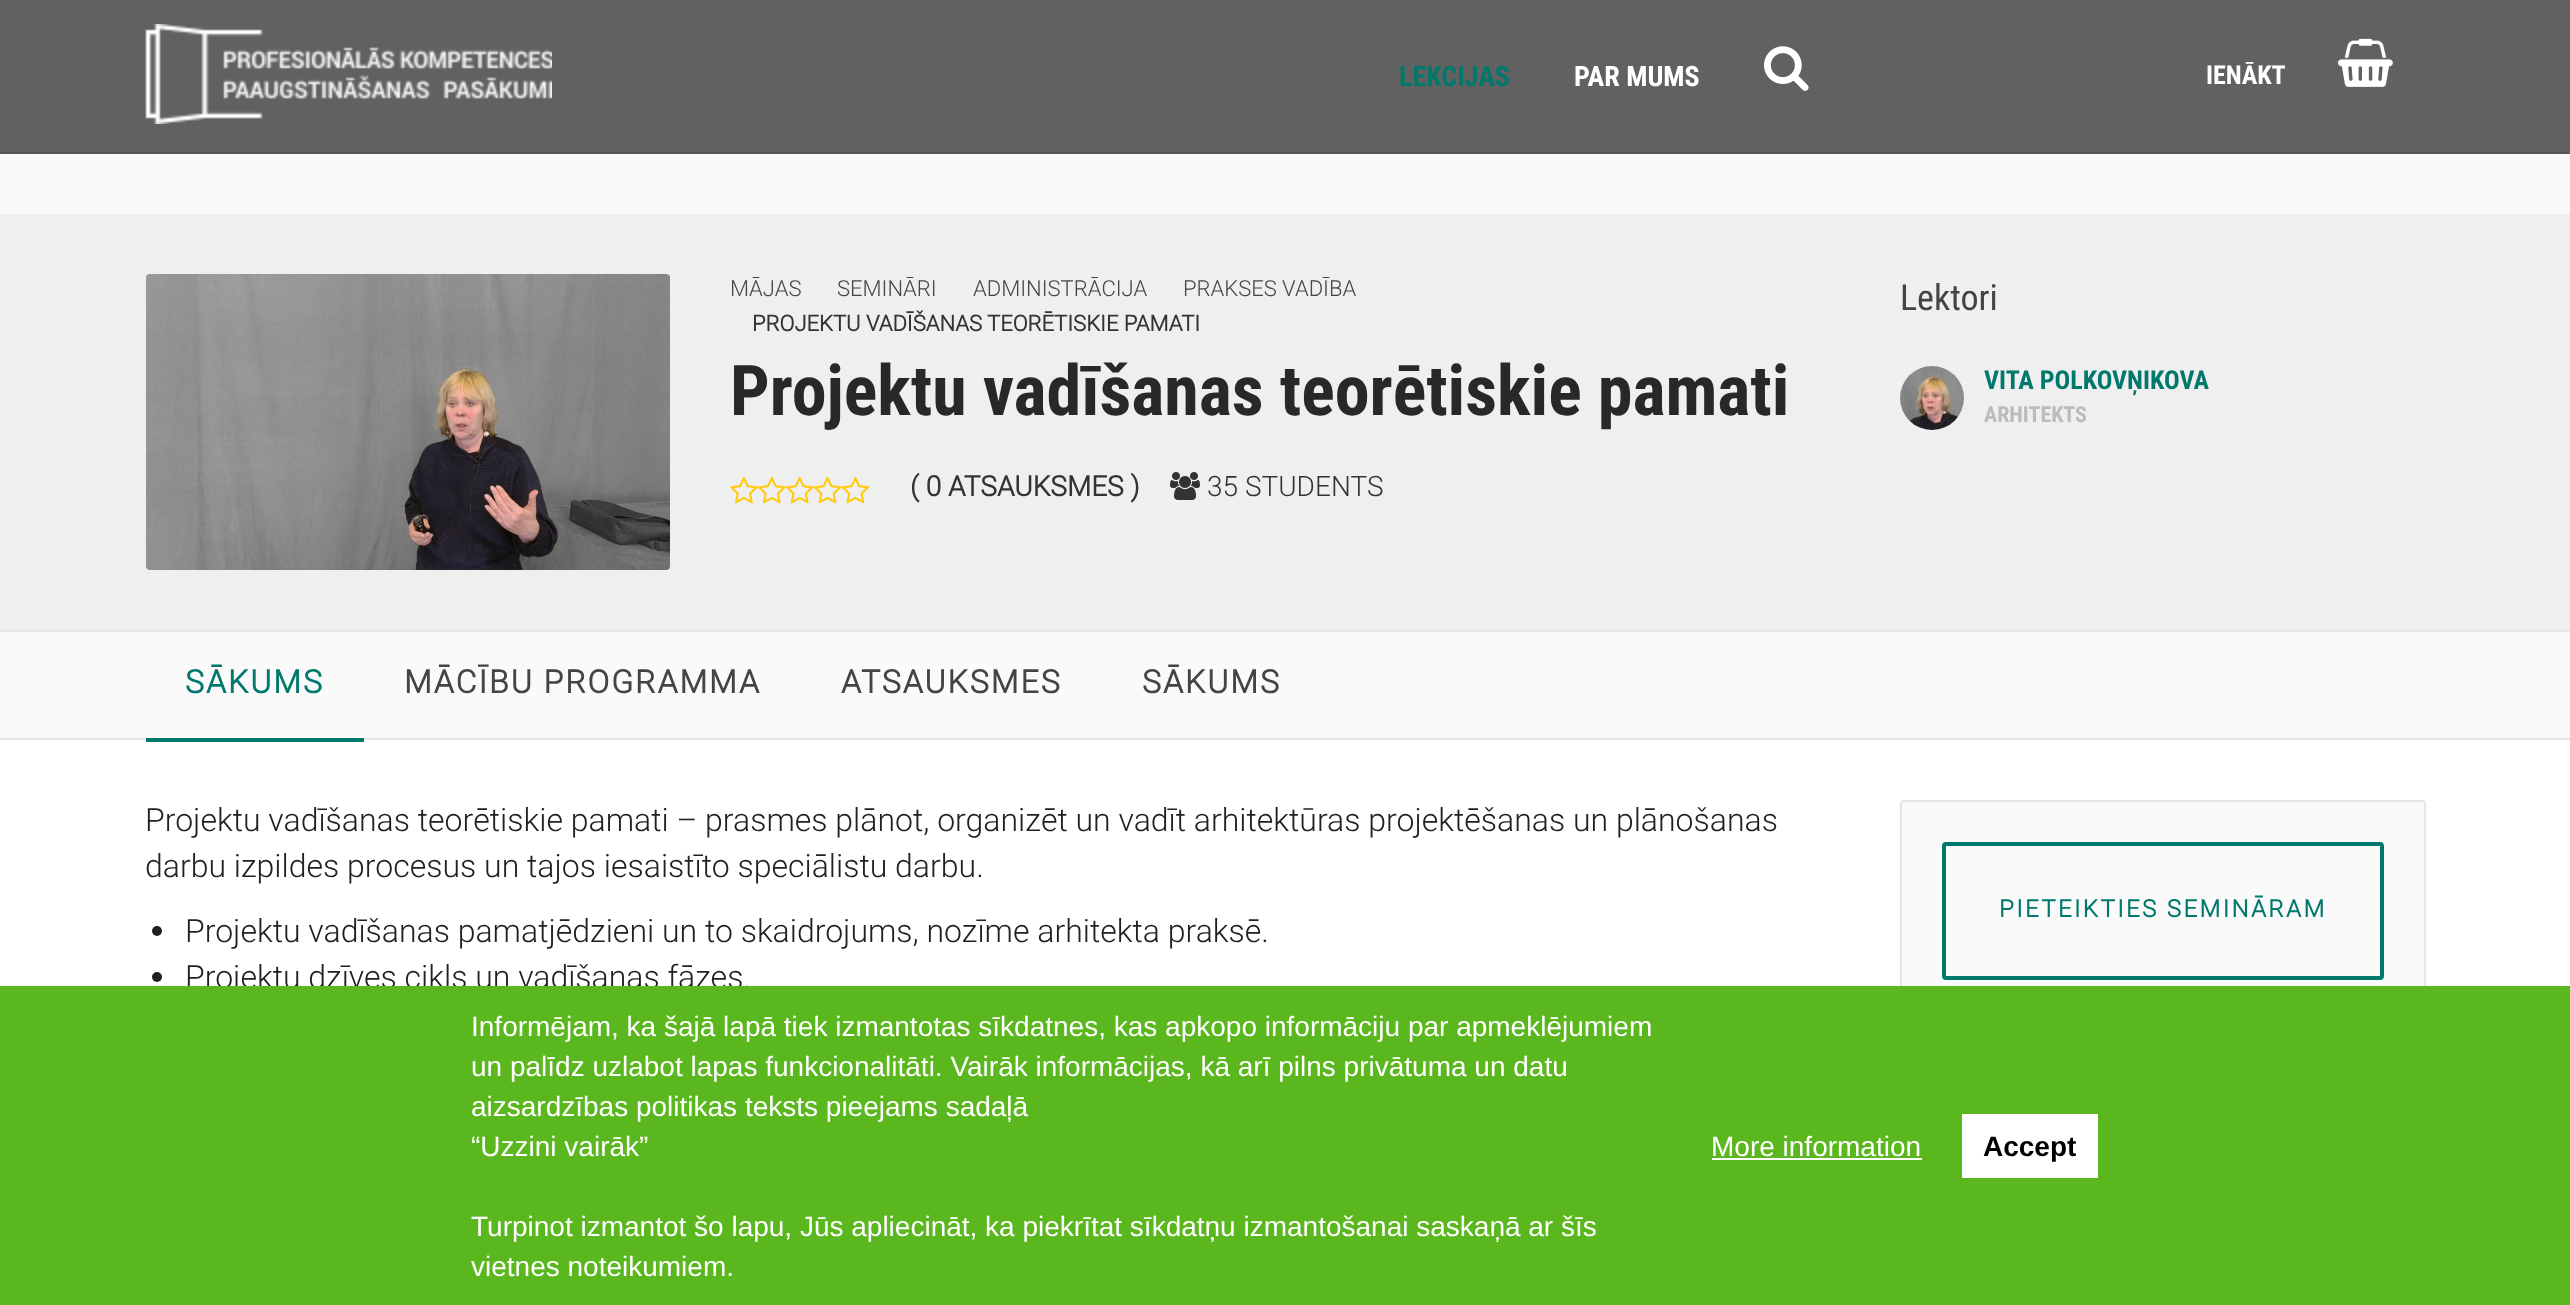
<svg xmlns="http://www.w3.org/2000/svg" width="2570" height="1305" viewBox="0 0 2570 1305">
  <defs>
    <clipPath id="clip1"><rect x="2206" y="62" width="80" height="26"/></clipPath>
    <filter id="blur1" x="-50%" y="-200%" width="200%" height="500%"><feGaussianBlur stdDeviation="1"/></filter>
  </defs>
  <rect width="100%" height="100%" fill="#ffffff"/>
  <rect x="0" y="0" width="2570" height="152" fill="#616161"/>
  <rect x="0" y="152" width="2570" height="2" fill="#595959"/>
  <image x="145" y="24" width="407" height="100" href="img1.png"/>
  <text x="1399" y="86" font-family="Roboto Condensed" font-size="28" font-weight="bold" fill="#00786c">LEKCIJAS</text>
  <text x="1574" y="86" font-family="Roboto Condensed" font-size="28" font-weight="bold" fill="#ffffff">PAR MUMS</text>
  <image x="1764" y="46" width="45" height="45" href="img2.png"/>
  <g clip-path="url(#clip1)">
    <text x="2206" y="84" font-family="Roboto Condensed" font-size="26" font-weight="bold" fill="#ffffff">IENĀKT</text>
  </g>
  <image x="2338" y="38" width="55" height="49" href="img3.png"/>
  <rect x="0" y="154" width="2570" height="60" fill="#fafafa"/>
  <rect x="0" y="214" width="2570" height="416" fill="#efefef"/>
  <image x="146" y="274" width="524" height="296" href="img4.png"/>
  <text x="730" y="296" font-family="Roboto" font-size="22" font-weight="300" fill="#444444">MĀJAS</text>
  <text x="837" y="296" font-family="Roboto" font-size="22" font-weight="300" fill="#444444">SEMINĀRI</text>
  <text x="973" y="296" font-family="Roboto" font-size="22" font-weight="300" fill="#444444">ADMINISTRĀCIJA</text>
  <text x="1183" y="296" font-family="Roboto" font-size="22" font-weight="300" fill="#444444">PRAKSES VADĪBA</text>
  <text x="752" y="331" font-family="Roboto" font-size="22" font-weight="bold" fill="#333333">PROJEKTU VADĪŠANAS TEORĒTISKIE PAMATI</text>
  <text x="730" y="415" font-family="Roboto Condensed" font-size="70" font-weight="bold" fill="#282828">Projektu vadīšanas teorētiskie pamati</text>
  <image x="730" y="476" width="140" height="28" href="img5.png"/>
  <text x="910" y="496" font-family="Roboto" font-size="28" font-weight="bold" fill="#333333">( 0 ATSAUKSMES )</text>
  <image x="1170" y="472" width="30" height="28" href="img6.png"/>
  <text x="1207" y="496" font-family="Roboto" font-size="28" font-weight="300" fill="#333333">35 STUDENTS</text>
  <text x="1900" y="310" font-family="Roboto Condensed" font-size="36" fill="#444444">Lektori</text>
  <image x="1900" y="366" width="64" height="64" href="img7.png"/>
  <text x="1984" y="389" font-family="Roboto Condensed" font-size="26" font-weight="bold" fill="#00786c">VITA POLKOVŅIKOVA</text>
  <text x="1984" y="422" font-family="Roboto Condensed" font-size="22" font-weight="bold" fill="#bbbbbb">ARHITEKTS</text>
  <rect x="0" y="632" width="2570" height="106" fill="#fafafa"/>
  <rect x="0" y="630" width="2570" height="2" fill="#e6e6e6"/>
  <rect x="0" y="738" width="2570" height="2" fill="#e6e6e6"/>
  <text x="185" y="693" font-family="Roboto" font-size="32" font-weight="bold" letter-spacing="2" fill="#00786c">SĀKUMS</text>
  <rect x="146" y="738" width="218" height="4" fill="#00786c"/>
  <text x="404" y="693" font-family="Roboto" font-size="32" font-weight="bold" letter-spacing="2" fill="#444444">MĀCĪBU PROGRAMMA</text>
  <text x="841" y="693" font-family="Roboto" font-size="32" font-weight="bold" letter-spacing="2" fill="#444444">ATSAUKSMES</text>
  <text x="1142" y="693" font-family="Roboto" font-size="32" font-weight="bold" letter-spacing="2" fill="#444444">SĀKUMS</text>
  <text x="145" y="831" font-family="Roboto" font-size="32" font-weight="300" fill="#212121">Projektu vadīšanas teorētiskie pamati – prasmes plānot, organizēt un vadīt arhitektūras projektēšanas un plānošanas</text>
  <text x="145" y="877" font-family="Roboto" font-size="32" font-weight="300" fill="#212121">darbu izpildes procesus un tajos iesaistīto speciālistu darbu.</text>
  <circle cx="157" cy="931" r="5" fill="#212121"/>
  <text x="185" y="942" font-family="Roboto" font-size="32" font-weight="300" fill="#212121">Projektu vadīšanas pamatjēdzieni un to skaidrojums, nozīme arhitekta praksē.</text>
  <circle cx="157" cy="977" r="5" fill="#212121"/>
  <text x="185" y="988" font-family="Roboto" font-size="32" font-weight="300" fill="#212121">Projektu dzīves cikls un vadīšanas fāzes.</text>
  <rect x="1900" y="802" width="526" height="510" rx="4" fill="#eeeeee" filter="url(#blur1)"/>
  <rect x="1901" y="801" width="524" height="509" rx="3" fill="#fafafa" stroke="#e6e6e6" stroke-width="2"/>
  <rect x="1944" y="844" width="438" height="134" rx="2" fill="none" stroke="#00786c" stroke-width="4"/>
  <text x="1999" y="917" font-family="Roboto" font-size="24" font-weight="bold" letter-spacing="2.4" fill="#00786c">PIETEIKTIES SEMINĀRAM</text>
  <rect x="0" y="986" width="2570" height="319" fill="#5bb71e"/>
  <text x="471" y="1036" font-family="Liberation Sans" font-size="28" fill="#ffffff">Informējam, ka šajā lapā tiek izmantotas sīkdatnes, kas apkopo informāciju par apmeklējumiem</text>
  <text x="471" y="1076" font-family="Liberation Sans" font-size="28" fill="#ffffff">un palīdz uzlabot lapas funkcionalitāti. Vairāk informācijas, kā arī pilns privātuma un datu</text>
  <text x="471" y="1116" font-family="Liberation Sans" font-size="28" fill="#ffffff">aizsardzības politikas teksts pieejams sadaļā</text>
  <text x="471" y="1156" font-family="Liberation Sans" font-size="28" fill="#ffffff">“Uzzini vairāk”</text>
  <text x="471" y="1236" font-family="Liberation Sans" font-size="28" fill="#ffffff">Turpinot izmantot šo lapu, Jūs apliecināt, ka piekrītat sīkdatņu izmantošanai saskaņā ar šīs</text>
  <text x="471" y="1276" font-family="Liberation Sans" font-size="28" fill="#ffffff">vietnes noteikumiem.</text>
  <text x="1711" y="1156" font-family="Liberation Sans" font-size="28" fill="#ffffff">More information</text>
  <rect x="1712" y="1158" width="210" height="2" fill="#ffffff"/>
  <rect x="1962" y="1114" width="136" height="64" fill="#ffffff"/>
  <text x="1983" y="1156" font-family="Liberation Sans" font-size="28" font-weight="bold" fill="#000000">Accept</text>
</svg>
